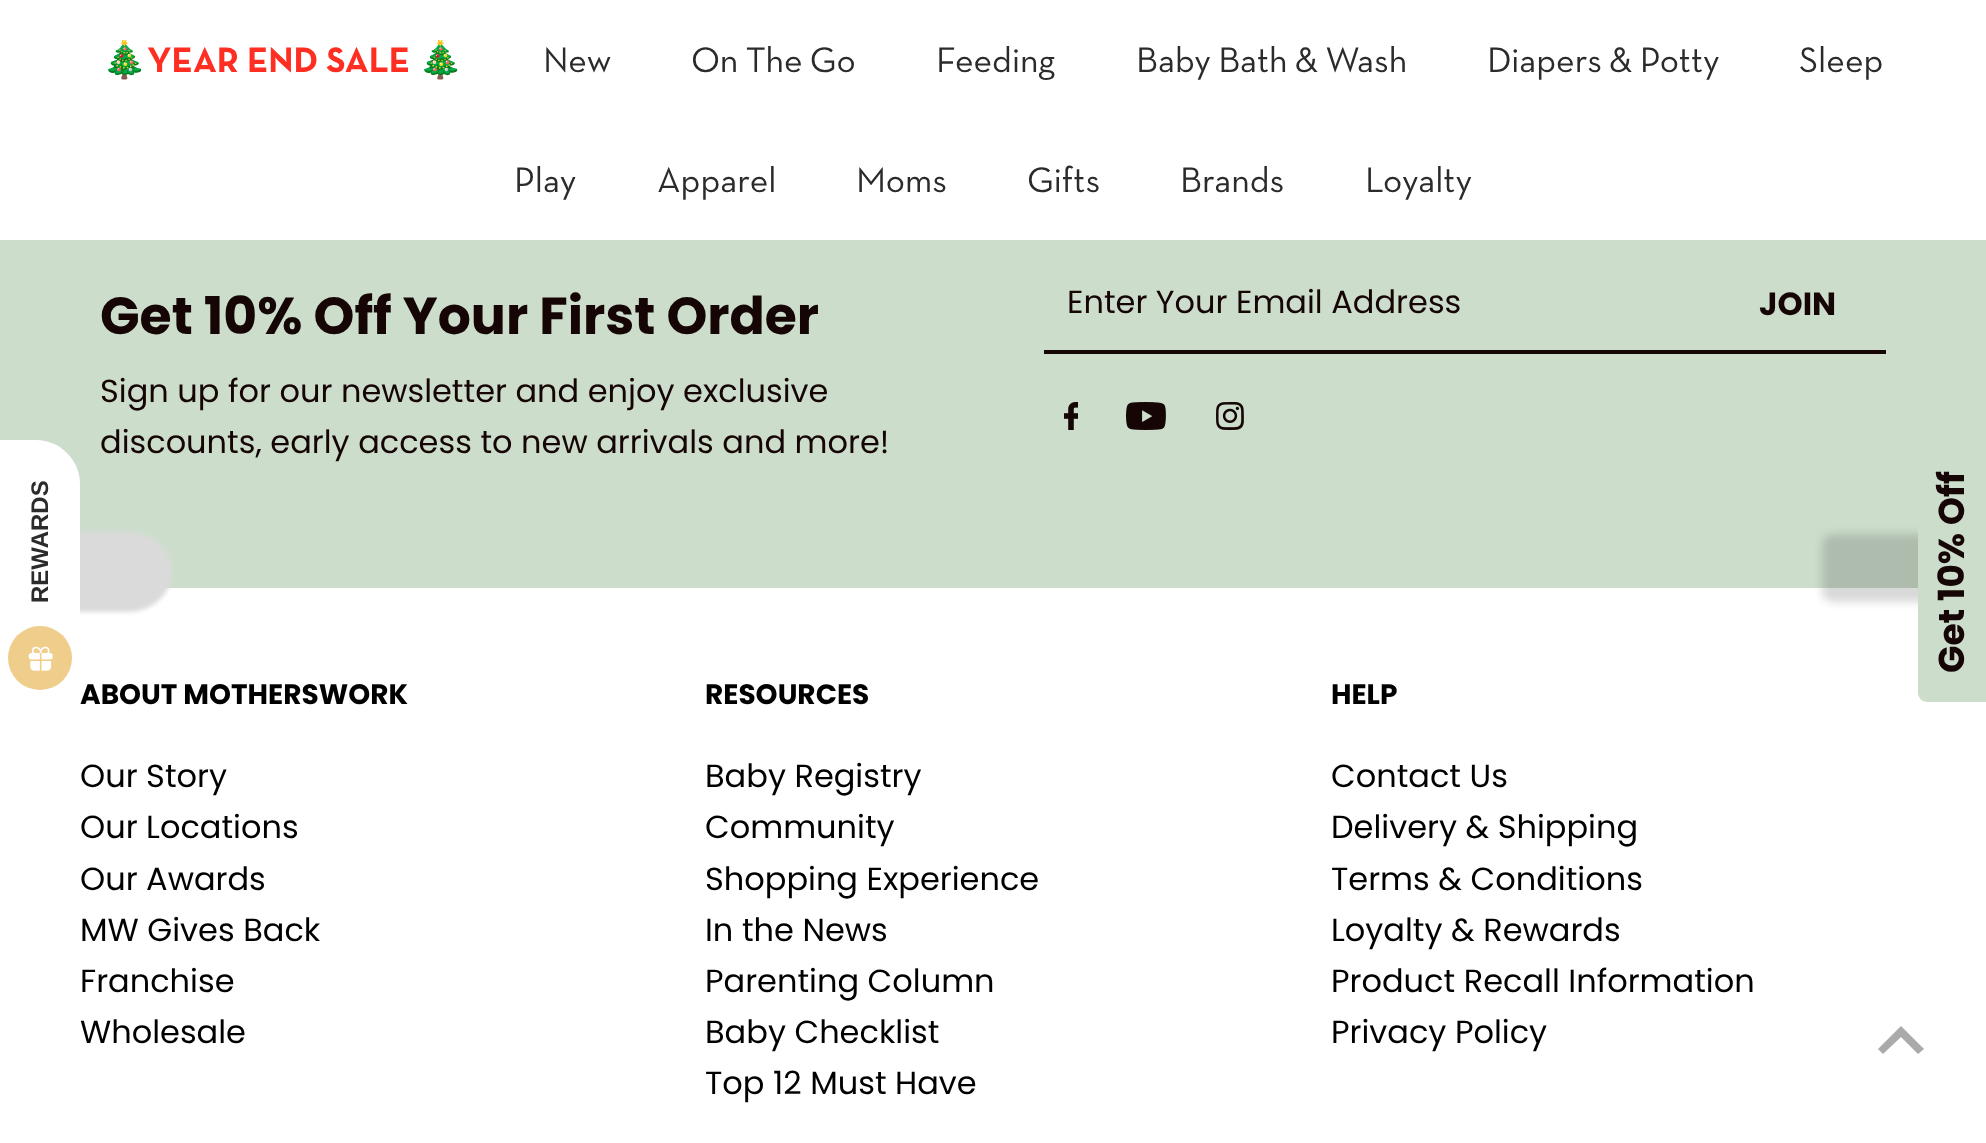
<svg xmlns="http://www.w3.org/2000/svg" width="1986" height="1143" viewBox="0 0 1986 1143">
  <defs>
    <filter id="blur1" x="-50%" y="-200%" width="200%" height="500%"><feGaussianBlur stdDeviation="2"/></filter>
    <filter id="blur2" x="-50%" y="-200%" width="200%" height="500%"><feGaussianBlur stdDeviation="4"/></filter>
  </defs>
  <rect width="100%" height="100%" fill="#ffffff"/>
  <rect x="0" y="240" width="1986" height="348" fill="#cdddcc"/>
  <rect x="-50" y="532" width="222" height="80" rx="44" fill="#dadada" filter="url(#blur1)"/>
  <path d="M0 704V440H36C60 440 80 460 80 484V660C80 684 60 704 36 704Z" fill="#ffffff"/>
  <text x="48" y="603" transform="rotate(-90 48 603)" font-family="Liberation Sans" font-size="24" font-weight="bold" fill="#2b2b2b">REWARDS</text>
  <circle cx="40" cy="658" r="32" fill="#efcd8b"/>
  <image x="28" y="646" width="25" height="25" href="img1.png"/>
  <text x="102" y="72" font-family="Noto Color Emoji" font-size="36" font-weight="bold" fill="#ff2e22">🎄</text>
  <text x="147" y="72" font-family="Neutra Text" font-size="36" font-weight="bold" fill="#ff2e22">YEAR END SALE</text>
  <text x="418" y="72" font-family="Noto Color Emoji" font-size="36" font-weight="bold" fill="#ff2e22">🎄</text>
  <text x="543" y="72" font-family="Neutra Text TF" font-size="36" fill="#2b2b2b">New</text>
  <text x="691" y="72" font-family="Neutra Text TF" font-size="36" fill="#2b2b2b">On The Go</text>
  <text x="936" y="72" font-family="Neutra Text TF" font-size="36" fill="#2b2b2b">Feeding</text>
  <text x="1136" y="72" font-family="Neutra Text TF" font-size="36" fill="#2b2b2b">Baby Bath &amp; Wash</text>
  <text x="1487" y="72" font-family="Neutra Text TF" font-size="36" fill="#2b2b2b">Diapers &amp; Potty</text>
  <text x="1799" y="72" font-family="Neutra Text TF" font-size="36" fill="#2b2b2b">Sleep</text>
  <text x="514" y="192" font-family="Neutra Text TF" font-size="36" fill="#2b2b2b">Play</text>
  <text x="657" y="192" font-family="Neutra Text TF" font-size="36" fill="#2b2b2b">Apparel</text>
  <text x="856" y="192" font-family="Neutra Text TF" font-size="36" fill="#2b2b2b">Moms</text>
  <text x="1027" y="192" font-family="Neutra Text TF" font-size="36" fill="#2b2b2b">Gifts</text>
  <text x="1180" y="192" font-family="Neutra Text TF" font-size="36" fill="#2b2b2b">Brands</text>
  <text x="1365" y="192" font-family="Neutra Text TF" font-size="36" fill="#2b2b2b">Loyalty</text>
  <text x="100" y="334" font-family="Poppins" font-size="52" font-weight="bold" fill="#150505">Get 10% Off Your First Order</text>
  <text x="100" y="402" font-family="Poppins" font-size="32" fill="#150505">Sign up for our newsletter and enjoy exclusive</text>
  <text x="100" y="453" font-family="Poppins" font-size="32" fill="#150505">discounts, early access to new arrivals and more!</text>
  <rect x="1044" y="350" width="842" height="4" fill="#150505"/>
  <text x="1067" y="313" font-family="Poppins" font-size="32" fill="#150505">Enter Your Email Address</text>
  <text x="1759" y="315" font-family="Poppins" font-size="32" font-weight="bold" fill="#150505">JOIN</text>
  <image x="1064" y="402" width="14" height="28" href="img2.png"/>
  <image x="1126" y="402" width="40" height="28" href="img3.png"/>
  <image x="1216" y="402" width="28" height="28" href="img4.png"/>
  <text x="80" y="704" font-family="Poppins" font-size="28" font-weight="bold" fill="#000000">ABOUT MOTHERSWORK</text>
  <text x="80" y="787" font-family="Poppins" font-size="32" fill="#000000">Our Story</text>
  <text x="80" y="838" font-family="Poppins" font-size="32" fill="#000000">Our Locations</text>
  <text x="80" y="890" font-family="Poppins" font-size="32" fill="#000000">Our Awards</text>
  <text x="80" y="941" font-family="Poppins" font-size="32" fill="#000000">MW Gives Back</text>
  <text x="80" y="992" font-family="Poppins" font-size="32" fill="#000000">Franchise</text>
  <text x="80" y="1043" font-family="Poppins" font-size="32" fill="#000000">Wholesale</text>
  <text x="705" y="704" font-family="Poppins" font-size="28" font-weight="bold" fill="#000000">RESOURCES</text>
  <text x="705" y="787" font-family="Poppins" font-size="32" fill="#000000">Baby Registry</text>
  <text x="705" y="838" font-family="Poppins" font-size="32" fill="#000000">Community</text>
  <text x="705" y="890" font-family="Poppins" font-size="32" fill="#000000">Shopping Experience</text>
  <text x="705" y="941" font-family="Poppins" font-size="32" fill="#000000">In the News</text>
  <text x="705" y="992" font-family="Poppins" font-size="32" fill="#000000">Parenting Column</text>
  <text x="705" y="1043" font-family="Poppins" font-size="32" fill="#000000">Baby Checklist</text>
  <text x="705" y="1094" font-family="Poppins" font-size="32" fill="#000000">Top 12 Must Have</text>
  <text x="1331" y="704" font-family="Poppins" font-size="28" font-weight="bold" fill="#000000">HELP</text>
  <text x="1331" y="787" font-family="Poppins" font-size="32" fill="#000000">Contact Us</text>
  <text x="1331" y="838" font-family="Poppins" font-size="32" fill="#000000">Delivery &amp; Shipping</text>
  <text x="1331" y="890" font-family="Poppins" font-size="32" fill="#000000">Terms &amp; Conditions</text>
  <text x="1331" y="941" font-family="Poppins" font-size="32" fill="#000000">Loyalty &amp; Rewards</text>
  <text x="1331" y="992" font-family="Poppins" font-size="32" fill="#000000">Product Recall Information</text>
  <text x="1331" y="1043" font-family="Poppins" font-size="32" fill="#000000">Privacy Policy</text>
  <path d="M1901 1026L1878 1049L1883 1054L1901 1037L1918 1054L1924 1049Z" fill="#aaaaaa"/>
  <rect x="1822" y="534" width="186" height="68" rx="10" fill="#000000" fill-opacity="0.15" filter="url(#blur2)"/>
  <path d="M1918 692V452C1918 446 1922 442 1928 442H1986V702H1928C1922 702 1918 698 1918 692Z" fill="#cdddcc"/>
  <text x="1964" y="673" transform="rotate(-90 1964 673)" font-family="Poppins" font-size="36" font-weight="bold" fill="#150505">Get 10% Off</text>
</svg>
